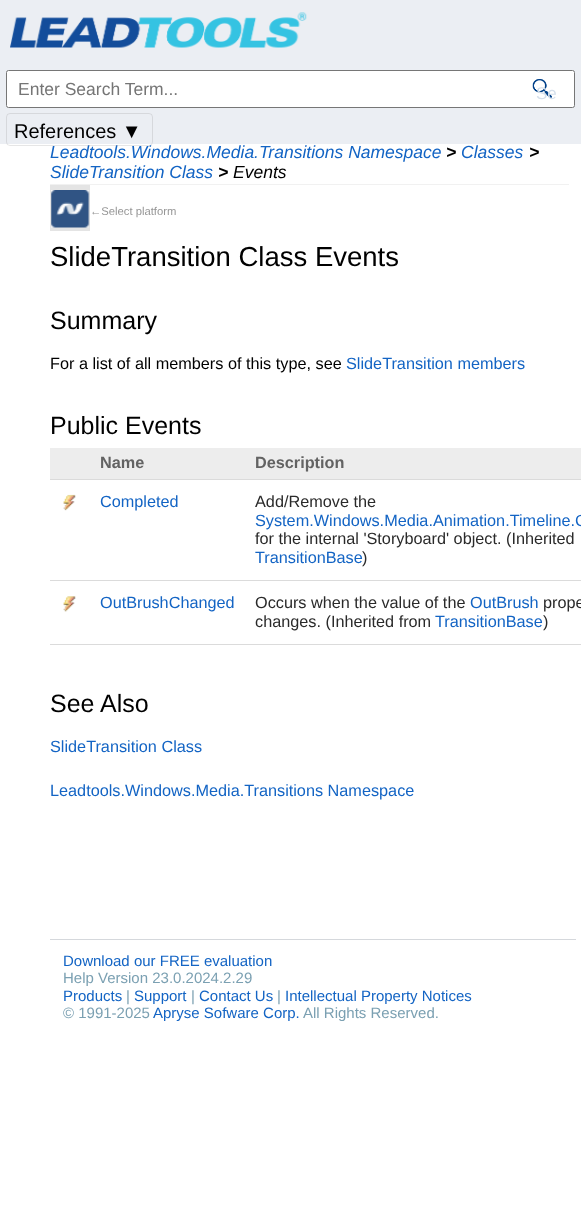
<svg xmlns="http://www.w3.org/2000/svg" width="581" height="1224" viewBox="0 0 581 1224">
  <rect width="100%" height="100%" fill="#ffffff"/>
  <rect x="0" y="0" width="581" height="144" fill="#ebeef3"/>
  <image x="10" y="12" width="297" height="36" href="img1.png"/>
  <rect x="6.5" y="70.5" width="568" height="37" rx="2" fill="#ffffff" stroke="#767676"/>
  <text x="18" y="95" font-family="Liberation Sans" font-size="17.5" fill="#757575">Enter Search Term...</text>
  <image x="532" y="79" width="20" height="19" href="img2.png"/>
  <text x="536" y="99" font-family="Liberation Sans" font-size="17" fill="#d4dfeb">Se</text>
  <text x="50" y="158" font-family="Liberation Sans" font-size="17.5" font-style="italic" fill="#1364c4">Leadtools.Windows.Media.Transitions Namespace</text>
  <rect x="6.5" y="113.5" width="146" height="32" rx="3.5" fill="none" stroke="#808080" stroke-opacity="0.2"/>
  <text x="14" y="138" font-family="Liberation Sans" font-size="20" fill="#000000">References ▼</text>
  <rect x="50" y="184" width="519" height="1" fill="#f1f1f1"/>
  <text x="446" y="158" font-family="Liberation Sans" font-size="17.5" font-weight="bold" font-style="italic" fill="#000000">&gt;</text>
  <text x="461" y="158" font-family="Liberation Sans" font-size="17.5" font-style="italic" fill="#1364c4">Classes</text>
  <text x="529" y="158" font-family="Liberation Sans" font-size="17.5" font-weight="bold" font-style="italic" fill="#000000">&gt;</text>
  <text x="50" y="178" font-family="Liberation Sans" font-size="17.5" font-style="italic" fill="#1364c4">SlideTransition Class</text>
  <text x="218" y="178" font-family="Liberation Sans" font-size="17.5" font-weight="bold" font-style="italic" fill="#000000">&gt;</text>
  <text x="233" y="178" font-family="Liberation Sans" font-size="17.5" font-style="italic" fill="#000000">Events</text>
  <rect x="50" y="185" width="40" height="46" fill="#e4e4e4"/>
  <image x="51" y="190" width="39" height="38" href="img3.png"/>
  <text x="90" y="215" font-family="Liberation Sans" font-size="11.25" fill="#959595">←Select platform</text>
  <text x="50" y="266" font-family="Liberation Sans" font-size="27.5" fill="#000000">SlideTransition Class Events</text>
  <text x="50" y="329" font-family="Liberation Sans" font-size="25" fill="#000000">Summary</text>
  <text x="50" y="369" font-family="Liberation Sans" font-size="16.25" fill="#000000">For a list of all members of this type, see</text>
  <text x="346" y="369" font-family="Liberation Sans" font-size="16.25" fill="#1364c4">SlideTransition members</text>
  <text x="50" y="434" font-family="Liberation Sans" font-size="25" fill="#000000">Public Events</text>
  <rect x="50" y="448" width="531" height="31" fill="#ededed"/>
  <text x="100" y="468" font-family="Liberation Sans" font-size="16.25" font-weight="bold" fill="#636363">Name</text>
  <rect x="50" y="479" width="531" height="1" fill="#dbdbdb"/>
  <text x="255" y="468" font-family="Liberation Sans" font-size="16.25" font-weight="bold" fill="#636363">Description</text>
  <image x="63" y="494" width="13" height="17" href="img4.png"/>
  <text x="100" y="507" font-family="Liberation Sans" font-size="16.25" fill="#1364c4">Completed</text>
  <rect x="50" y="580" width="531" height="1" fill="#dbdbdb"/>
  <text x="255" y="507" font-family="Liberation Sans" font-size="16.25" fill="#2a2a2a">Add/Remove the</text>
  <text x="255" y="526" font-family="Liberation Sans" font-size="16.25" fill="#1364c4">System.Windows.Media.Animation.Timeline.C</text>
  <text x="255" y="544" font-family="Liberation Sans" font-size="16.25" fill="#2a2a2a">for the internal 'Storyboard' object. (Inherited</text>
  <text x="255" y="563" font-family="Liberation Sans" font-size="16.25" fill="#1364c4">TransitionBase</text>
  <text x="362" y="563" font-family="Liberation Sans" font-size="16.25" fill="#2a2a2a">)</text>
  <image x="63" y="596" width="13" height="16" href="img5.png"/>
  <text x="100" y="608" font-family="Liberation Sans" font-size="16.25" fill="#1364c4">OutBrushChanged</text>
  <rect x="50" y="644" width="531" height="1" fill="#dbdbdb"/>
  <text x="255" y="608" font-family="Liberation Sans" font-size="16.25" fill="#2a2a2a">Occurs when the value of the</text>
  <text x="470" y="608" font-family="Liberation Sans" font-size="16.25" fill="#1364c4">OutBrush</text>
  <text x="543" y="608" font-family="Liberation Sans" font-size="16.25" fill="#2a2a2a">prope</text>
  <text x="255" y="627" font-family="Liberation Sans" font-size="16.25" fill="#2a2a2a">changes. (Inherited from</text>
  <text x="435" y="627" font-family="Liberation Sans" font-size="16.25" fill="#1364c4">TransitionBase</text>
  <text x="543" y="627" font-family="Liberation Sans" font-size="16.25" fill="#2a2a2a">)</text>
  <text x="50" y="712" font-family="Liberation Sans" font-size="25" fill="#000000">See Also</text>
  <text x="50" y="752" font-family="Liberation Sans" font-size="16.25" fill="#1364c4">SlideTransition Class</text>
  <text x="50" y="796" font-family="Liberation Sans" font-size="16.25" fill="#1364c4">Leadtools.Windows.Media.Transitions Namespace</text>
  <rect x="50" y="939" width="526" height="1" fill="#d5d8dc"/>
  <text x="63" y="966" font-family="Liberation Sans" font-size="15" fill="#1364c4">Download our FREE evaluation</text>
  <text x="63" y="983" font-family="Liberation Sans" font-size="15" fill="#7ba0b2">Help Version 23.0.2024.2.29</text>
  <text x="63" y="1001" font-family="Liberation Sans" font-size="15" fill="#1364c4">Products</text>
  <text x="126" y="1001" font-family="Liberation Sans" font-size="15" fill="#7ba0b2">|</text>
  <text x="134" y="1001" font-family="Liberation Sans" font-size="15" fill="#1364c4">Support</text>
  <text x="191" y="1001" font-family="Liberation Sans" font-size="15" fill="#7ba0b2">|</text>
  <text x="199" y="1001" font-family="Liberation Sans" font-size="15" fill="#1364c4">Contact Us</text>
  <text x="277" y="1001" font-family="Liberation Sans" font-size="15" fill="#7ba0b2">|</text>
  <text x="285" y="1001" font-family="Liberation Sans" font-size="15" fill="#1364c4">Intellectual Property Notices</text>
  <text x="63" y="1018" font-family="Liberation Sans" font-size="15" fill="#7ba0b2">© 1991-2025</text>
  <text x="153" y="1018" font-family="Liberation Sans" font-size="15" fill="#1364c4">Apryse Sofware Corp.</text>
  <text x="303" y="1018" font-family="Liberation Sans" font-size="15" fill="#7ba0b2">All Rights Reserved.</text>
</svg>
